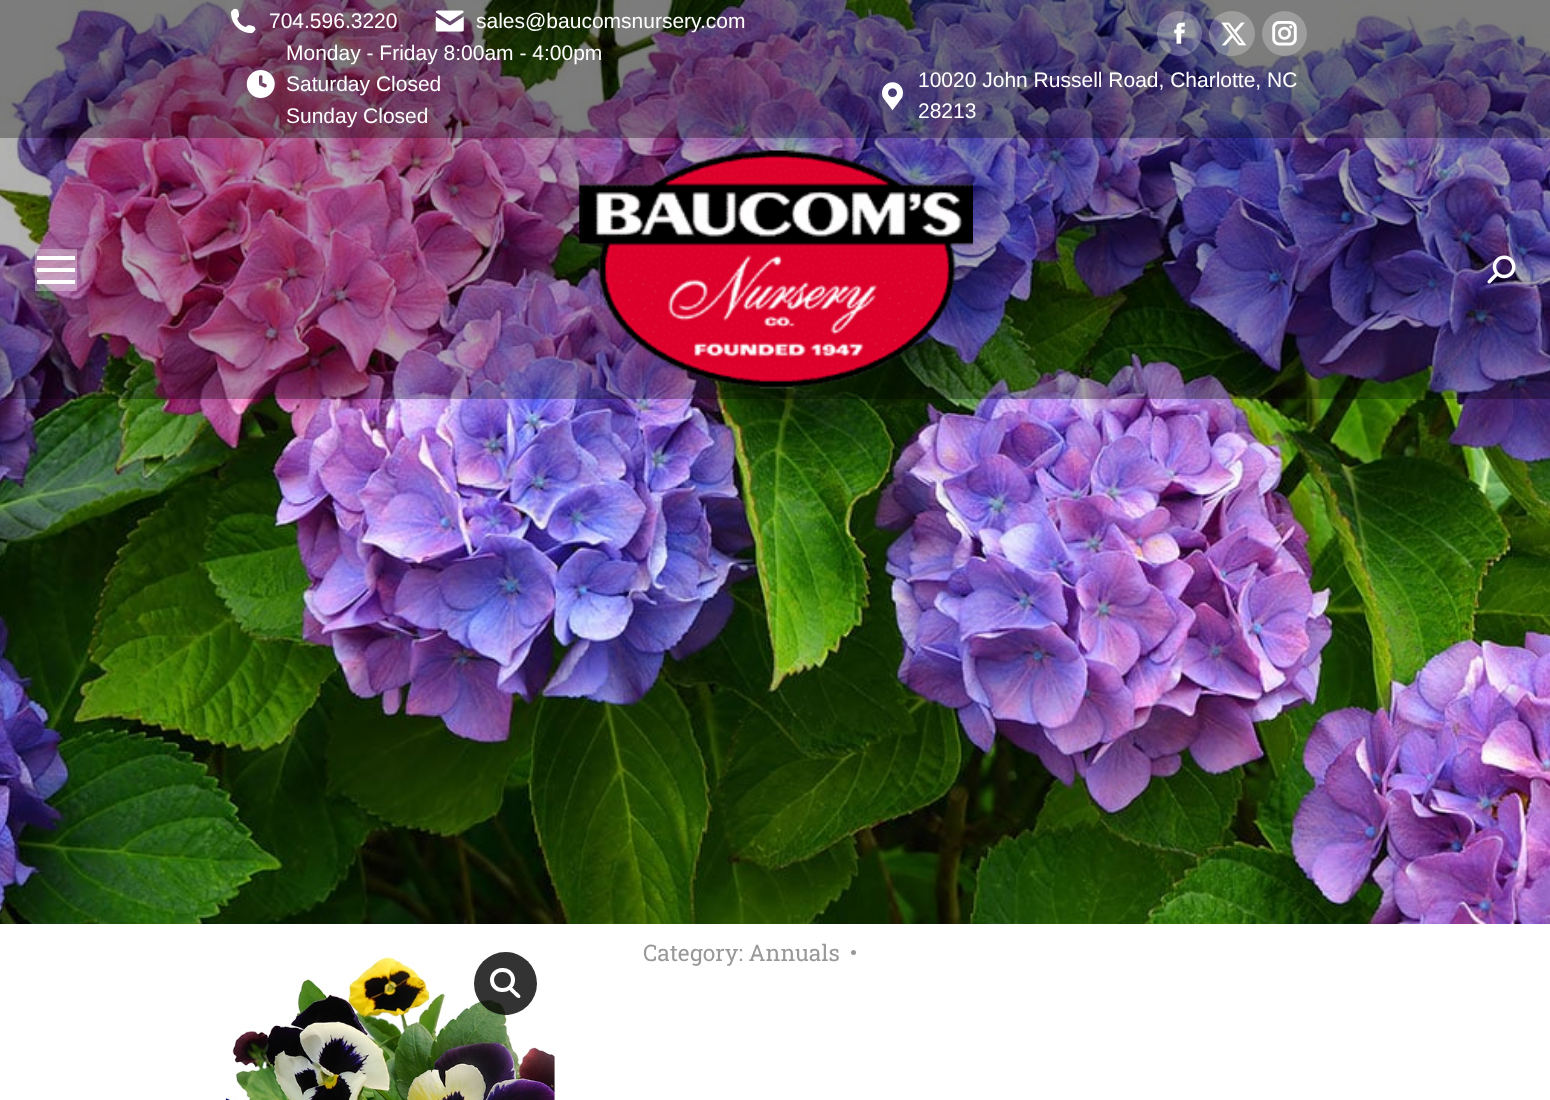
<svg xmlns="http://www.w3.org/2000/svg" width="1550" height="1100" viewBox="0 0 1550 1100">
  <rect width="100%" height="100%" fill="#ffffff"/>
  <image x="0" y="0" width="1550" height="924" href="img1.png"/>
  <rect x="0" y="0" width="1550" height="399" fill="#000000" fill-opacity="0.3"/>
  <rect x="0" y="0" width="1550" height="138" fill="#000000" fill-opacity="0.3"/>
  <image x="231" y="8" width="25" height="26" href="img2.png"/>
  <text x="269" y="28" font-family="Liberation Sans" font-size="21" fill="#ffffff">704.596.3220</text>
  <image x="435" y="10" width="29" height="22" href="img3.png"/>
  <text x="476" y="28" font-family="Liberation Sans" font-size="21" fill="#ffffff">sales@baucomsnursery.com</text>
  <text x="286" y="60" font-family="Liberation Sans" font-size="21" fill="#ffffff">Monday - Friday 8:00am - 4:00pm</text>
  <image x="246" y="70" width="29" height="28" href="img4.png"/>
  <text x="286" y="91" font-family="Liberation Sans" font-size="21" fill="#ffffff">Saturday Closed</text>
  <text x="286" y="123" font-family="Liberation Sans" font-size="21" fill="#ffffff">Sunday Closed</text>
  <circle cx="1179.5" cy="33.5" r="22.5" fill="#ffffff" fill-opacity="0.25"/>
  <image x="1174" y="22" width="11" height="22" href="img5.png"/>
  <rect x="1209" y="11" width="46" height="45" rx="22.5" fill="#ffffff" fill-opacity="0.25"/>
  <image x="1221" y="22" width="26" height="24" href="img6.png"/>
  <circle cx="1284.5" cy="33.5" r="22.5" fill="#ffffff" fill-opacity="0.25"/>
  <image x="1272" y="21" width="25" height="25" href="img7.png"/>
  <image x="882" y="82" width="21" height="29" href="img8.png"/>
  <text x="918" y="87" font-family="Liberation Sans" font-size="21" fill="#ffffff">10020 John Russell Road, Charlotte, NC</text>
  <text x="918" y="118" font-family="Liberation Sans" font-size="21" fill="#ffffff">28213</text>
  <rect x="35" y="249" width="42" height="42" fill="#ffffff" fill-opacity="0.3"/>
  <rect x="37" y="256" width="38" height="4" fill="#ffffff"/>
  <rect x="37" y="268" width="38" height="4" fill="#ffffff"/>
  <rect x="37" y="280" width="38" height="4" fill="#ffffff"/>
  <image x="579" y="148" width="394" height="241" href="img9.png"/>
  <image x="1487" y="255" width="29" height="29" href="img10.png"/>
  <image x="225" y="956" width="330" height="144" href="img11.png"/>
  <circle cx="505.5" cy="983.5" r="31.5" fill="#000000" fill-opacity="0.8"/>
  <rect x="492" y="970" width="21" height="20" rx="10" fill="none" stroke="#ffffff" stroke-width="4"/>
  <path d="M510 988C512 986 515 990.5 516 991.5C517 992.5 522 995.5 520 997.5C518 999.5 514.5 995 513.5 994C512.5 993 508 990 510 988Z" fill="#ffffff"/>
  <text x="643" y="961" font-family="Roboto Slab" font-size="22.75" fill="#999999">Category: Annuals</text>
  <circle cx="853.5" cy="952.5" r="2.5" fill="#999999"/>
</svg>
